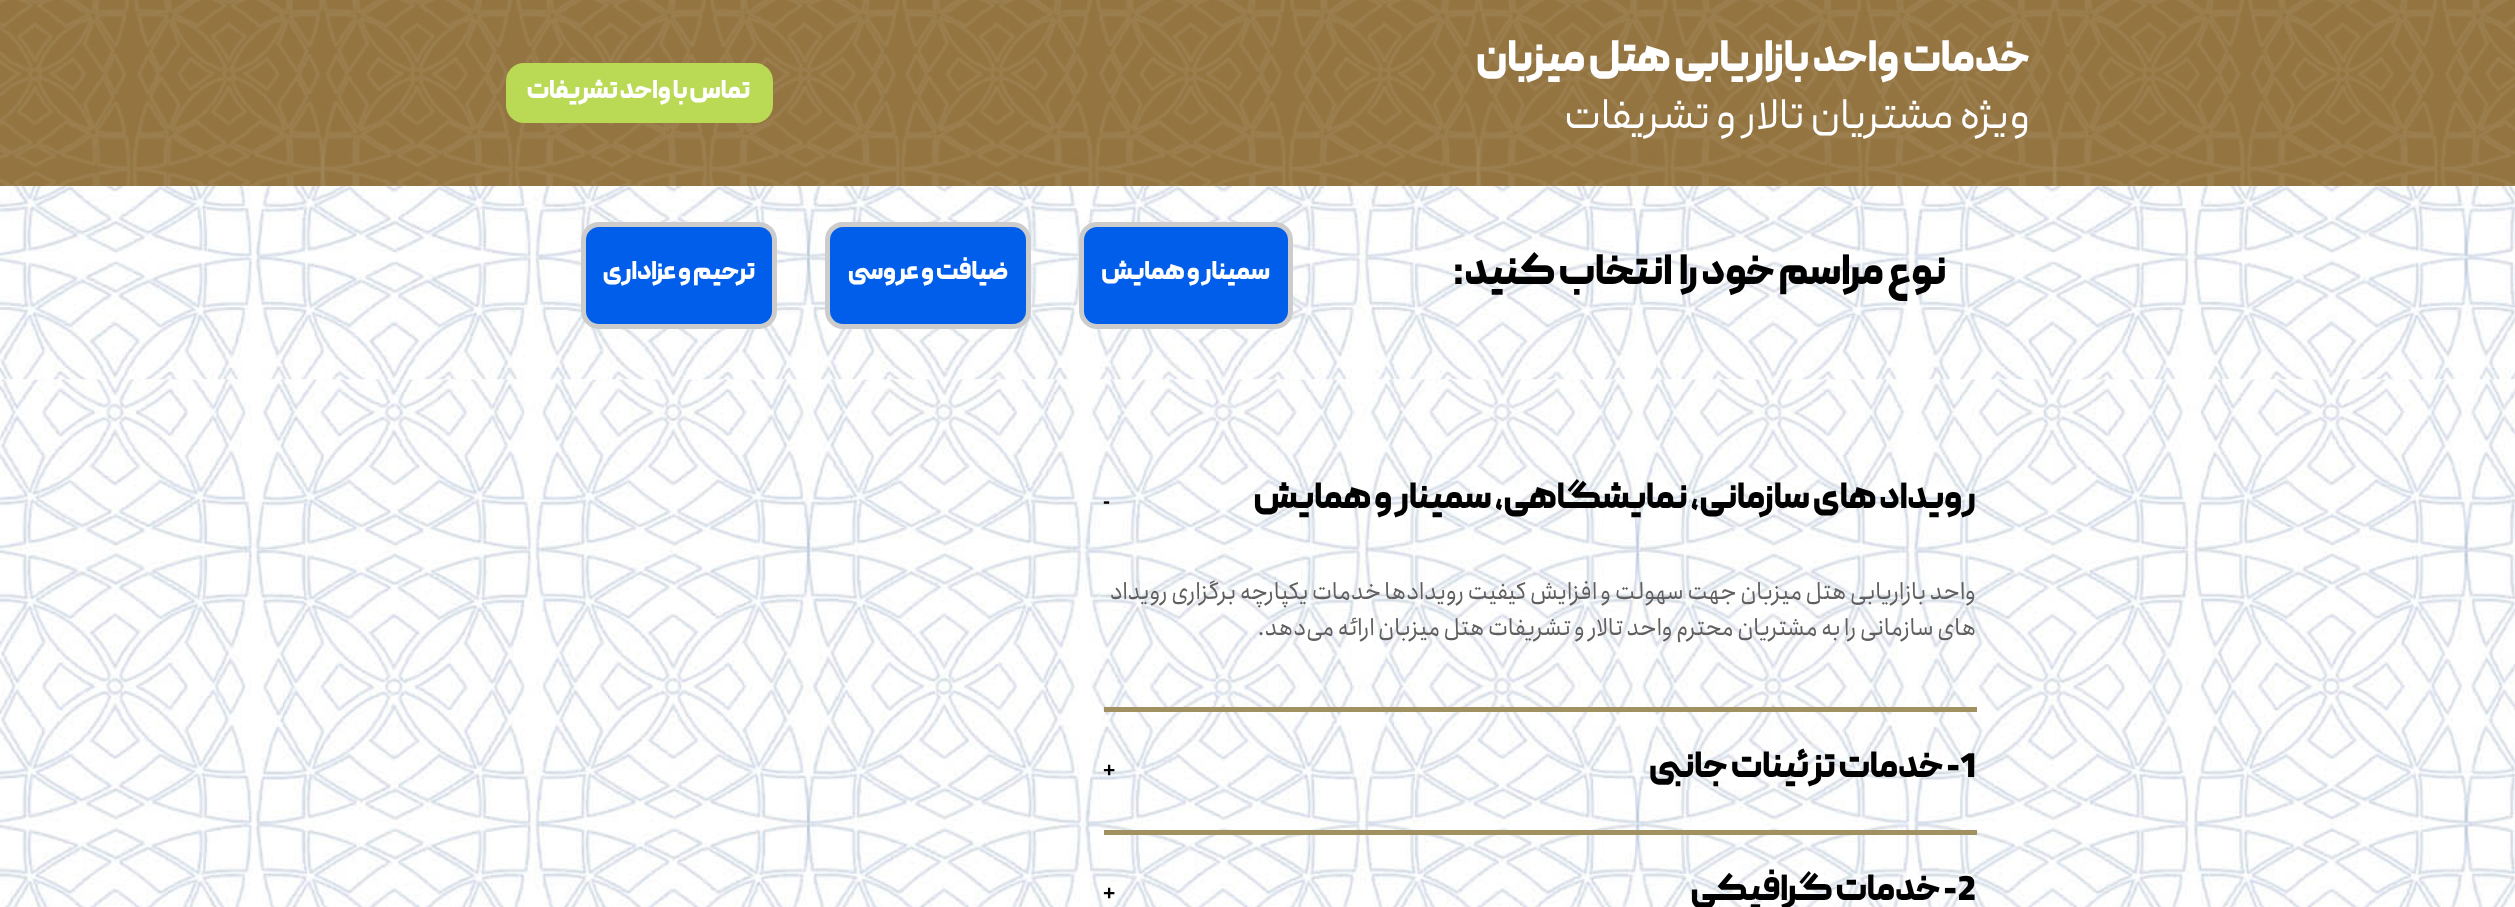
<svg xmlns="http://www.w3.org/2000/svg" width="2515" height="907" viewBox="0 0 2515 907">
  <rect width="100%" height="100%" fill="#ffffff"/>
  <image x="0" y="0" width="2515" height="186" href="img1.png"/>
  <text x="2030" y="71" font-family="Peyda" font-size="43.5" font-weight="900" direction="rtl" fill="#ffffff">خدمات واحد بازاریابی هتل میزبان</text>
  <rect x="506" y="63" width="267" height="60" rx="18" fill="#bada55"/>
  <text x="750" y="98" font-family="Peyda" font-size="25.5" font-weight="900" direction="rtl" fill="#ffffff">تماس با واحد تشریفات</text>
  <text x="2030" y="128" font-family="Peyda" font-size="43.5" direction="rtl" fill="#ffffff">ویژه مشتریان تالار و تشریفات</text>
  <image x="0" y="186" width="2515" height="194" href="img2.png"/>
  <text x="1946" y="284" font-family="Peyda" font-size="42" font-weight="900" direction="rtl" fill="#000000" xml:space="preserve">نوع مراسم خود را  انتخاب کنید:</text>
  <rect x="1081.5" y="224.5" width="209" height="102" rx="15.5" fill="#005eea" stroke="#cccccc" stroke-width="5"/>
  <text x="1270" y="279" font-family="Peyda" font-size="25.5" font-weight="900" direction="rtl" fill="#ffffff">سمینار و همایش</text>
  <rect x="827.5" y="224.5" width="201" height="102" rx="15.5" fill="#005eea" stroke="#cccccc" stroke-width="5"/>
  <text x="1008" y="279" font-family="Peyda" font-size="25.5" font-weight="900" direction="rtl" fill="#ffffff">ضیافت و عروسی</text>
  <rect x="583.5" y="224.5" width="191" height="102" rx="15.5" fill="#005eea" stroke="#cccccc" stroke-width="5"/>
  <text x="755" y="279" font-family="Peyda" font-size="25.5" font-weight="900" direction="rtl" fill="#ffffff">ترحیم و عزاداری</text>
  <image x="0" y="379" width="2515" height="528" href="img3.png"/>
  <rect x="1104" y="707" width="873" height="5" fill="#a29160"/>
  <text x="1976" y="508" font-family="Peyda" font-size="36" font-weight="900" direction="rtl" fill="#000000">رویداد های سازمانی، نمایشگاهی، سمینار و همایش</text>
  <text x="1103" y="508" font-family="Liberation Sans" font-size="21" font-weight="bold" fill="#000000">-</text>
  <text x="1976" y="599" font-family="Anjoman" font-size="24" direction="rtl" fill="#605e5e">واحد بازاریابی هتل میزبان جهت سهولت و افزایش کیفیت رویدادها خدمات یکپارچه برگزاری رویداد</text>
  <text x="1976" y="635" font-family="Anjoman" font-size="24" direction="rtl" fill="#605e5e">های سازمانی را به مشتریان محترم واحد تالار و تشریفات هتل میزبان ارائه می</text>
  <text x="1306" y="635" font-family="Anjoman" font-size="24" direction="rtl" fill="#605e5e">‌دهد.</text>
  <rect x="1104" y="830" width="873" height="5" fill="#a29160"/>
  <text x="1960" y="777" font-family="Peyda" font-size="36" font-weight="900" fill="#000000">1</text>
  <text x="1960" y="777" font-family="Peyda" font-size="36" font-weight="900" direction="rtl" fill="#000000">- خدمات تزئینات جانبی</text>
  <text x="1103" y="777" font-family="Liberation Sans" font-size="21" font-weight="bold" fill="#000000">+</text>
  <text x="1957" y="900" font-family="Peyda" font-size="36" font-weight="900" fill="#000000">2</text>
  <text x="1957" y="900" font-family="Peyda" font-size="36" font-weight="900" direction="rtl" fill="#000000">- خدمات گرافیکی</text>
  <text x="1103" y="900" font-family="Liberation Sans" font-size="21" font-weight="bold" fill="#000000">+</text>
</svg>
